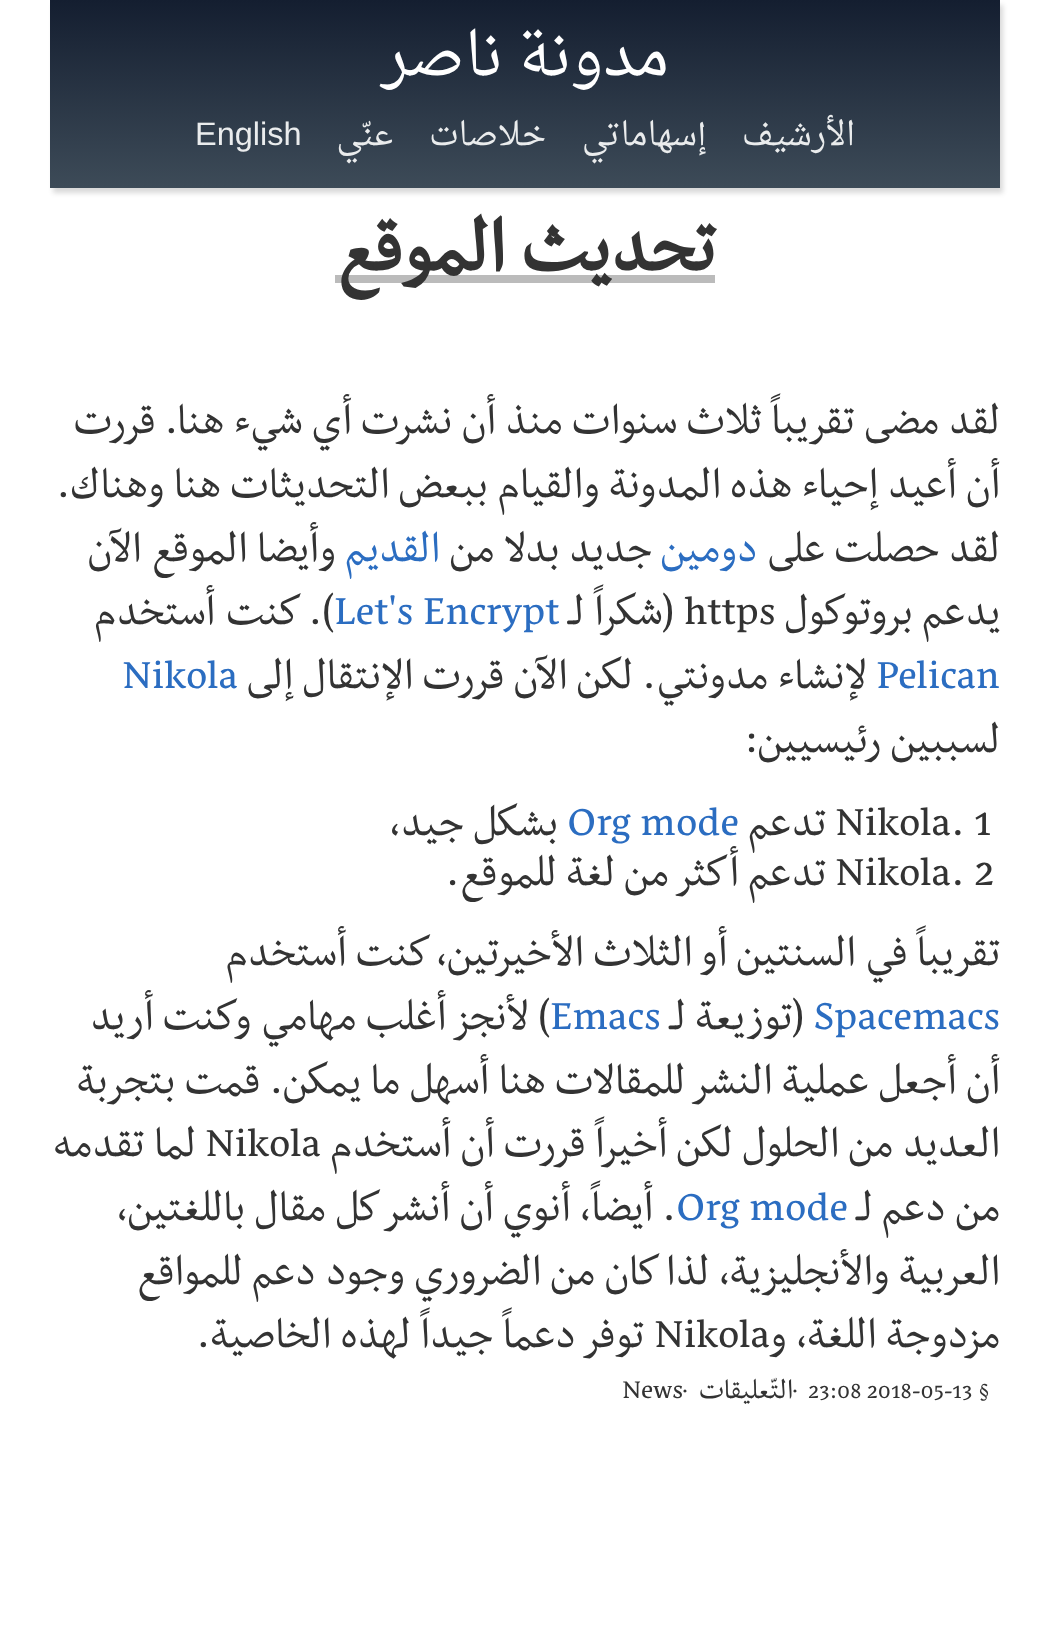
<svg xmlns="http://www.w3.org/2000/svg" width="1050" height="1636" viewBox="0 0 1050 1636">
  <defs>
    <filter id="blur1" x="-50%" y="-200%" width="200%" height="500%"><feGaussianBlur stdDeviation="2.5"/></filter>
    <linearGradient id="g1" gradientUnits="userSpaceOnUse" x1="525" y1="188" x2="525" y2="0"><stop offset="0" stop-color="#3d4b58"/><stop offset="1" stop-color="#141e30"/></linearGradient>
  </defs>
  <rect width="100%" height="100%" fill="#ffffff"/>
  <rect x="53" y="5" width="950" height="188" fill="#000000" fill-opacity="0.15" filter="url(#blur1)"/>
  <rect x="50" y="0" width="950" height="188" fill="url(#g1)"/>
  <text x="669" y="75" font-family="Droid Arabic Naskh" font-size="60" direction="rtl" fill="#ffffff">مدونة ناصر</text>
  <text x="855" y="145" font-family="Droid Arabic Naskh" font-size="32.5" direction="rtl" fill="#eaeced">الأرشيف</text>
  <text x="707" y="145" font-family="Droid Arabic Naskh" font-size="32.5" direction="rtl" fill="#eaeced">إسهاماتي</text>
  <text x="546" y="145" font-family="Droid Arabic Naskh" font-size="32.5" direction="rtl" fill="#eaeced">خلاصات</text>
  <text x="393" y="145" font-family="Droid Arabic Naskh" font-size="32.5" direction="rtl" fill="#eaeced">عنّي</text>
  <text x="195" y="145" font-family="Liberation Sans" font-size="32.5" fill="#eaeced">English</text>
  <rect x="335" y="275" width="380" height="8" fill="#bbbbbb"/>
  <text x="715" y="270" font-family="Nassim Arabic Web" font-size="85.75" font-weight="bold" direction="rtl" fill="#333333">تحديث الموقع</text>
  <text x="1000" y="433" font-family="Nassim Arabic Web" font-size="49" direction="rtl" fill="#333333">لقد مضى تقريباً ثلاث سنوات منذ أن نشرت أي شيء هنا. قررت</text>
  <text x="1000" y="497" font-family="Nassim Arabic Web" font-size="49" direction="rtl" fill="#333333">أن أعيد إحياء هذه المدونة والقيام ببعض التحديثات هنا وهناك.</text>
  <text x="1000" y="561" font-family="Nassim Arabic Web" font-size="49" direction="rtl" fill="#333333">لقد حصلت على</text>
  <text x="758" y="561" font-family="Nassim Arabic Web" font-size="49" direction="rtl" fill="#2b6dc1">دومين</text>
  <text x="652" y="561" font-family="Nassim Arabic Web" font-size="49" direction="rtl" fill="#333333">جديد بدلا من</text>
  <text x="440" y="561" font-family="Nassim Arabic Web" font-size="49" direction="rtl" fill="#2b6dc1">القديم</text>
  <text x="336" y="561" font-family="Nassim Arabic Web" font-size="49" direction="rtl" fill="#333333">وأيضا الموقع الآن</text>
  <text x="1000" y="624" font-family="Nassim Arabic Web" font-size="49" direction="rtl" fill="#333333">يدعم بروتوكول</text>
  <text x="684" y="624" font-family="Nassim Arabic Web" font-size="49" fill="#333333">https</text>
  <text x="674" y="624" font-family="Nassim Arabic Web" font-size="49" direction="rtl" fill="#333333">(شكراً لـ</text>
  <text x="334" y="624" font-family="Nassim Arabic Web" font-size="49" fill="#2b6dc1">Let's Encrypt</text>
  <text x="334" y="624" word-spacing="2" font-family="Nassim Arabic Web" font-size="49" direction="rtl" fill="#333333">). كنت أستخدم</text>
  <text x="876" y="688" font-family="Nassim Arabic Web" font-size="49" fill="#2b6dc1">Pelican</text>
  <text x="867" y="688" font-family="Nassim Arabic Web" font-size="49" direction="rtl" fill="#333333">لإنشاء مدونتي. لكن الآن قررت الإنتقال إلى</text>
  <text x="122" y="688" font-family="Nassim Arabic Web" font-size="49" fill="#2b6dc1">Nikola</text>
  <text x="1000" y="752" font-family="Nassim Arabic Web" font-size="49" direction="rtl" fill="#333333">لسببين رئيسيين:</text>
  <text x="951" y="835" font-family="Nassim Arabic Web" font-size="49" fill="#333333">. 1</text>
  <text x="835" y="835" font-family="Nassim Arabic Web" font-size="49" fill="#333333">Nikola</text>
  <text x="826" y="835" font-family="Nassim Arabic Web" font-size="49" direction="rtl" fill="#333333">تدعم</text>
  <text x="567" y="835" font-family="Nassim Arabic Web" font-size="49" fill="#2b6dc1">Org mode</text>
  <text x="558" y="835" font-family="Nassim Arabic Web" font-size="49" direction="rtl" fill="#333333">بشكل جيد،</text>
  <text x="951" y="885" font-family="Nassim Arabic Web" font-size="49" fill="#333333">. 2</text>
  <text x="835" y="885" font-family="Nassim Arabic Web" font-size="49" fill="#333333">Nikola</text>
  <text x="826" y="885" font-family="Nassim Arabic Web" font-size="49" direction="rtl" fill="#333333">تدعم أكثر من لغة للموقع.</text>
  <text x="1000" y="965" font-family="Nassim Arabic Web" font-size="49" direction="rtl" fill="#333333">تقريباً في السنتين أو الثلاث الأخيرتين، كنت أستخدم</text>
  <text x="813" y="1029" font-family="Nassim Arabic Web" font-size="49" fill="#2b6dc1">Spacemacs</text>
  <text x="804" y="1029" font-family="Nassim Arabic Web" font-size="49" direction="rtl" fill="#333333">(توزيعة لـ</text>
  <text x="550" y="1029" font-family="Nassim Arabic Web" font-size="49" fill="#2b6dc1">Emacs</text>
  <text x="550" y="1029" font-family="Nassim Arabic Web" font-size="49" direction="rtl" fill="#333333">) لأنجز أغلب مهامي وكنت أريد</text>
  <text x="1000" y="1093" font-family="Nassim Arabic Web" font-size="49" direction="rtl" fill="#333333">أن أجعل عملية النشر للمقالات هنا أسهل ما يمكن. قمت بتجربة</text>
  <text x="1000" y="1156" font-family="Nassim Arabic Web" font-size="49" direction="rtl" fill="#333333">العديد من الحلول لكن أخيراً قررت أن أستخدم</text>
  <text x="205" y="1156" font-family="Nassim Arabic Web" font-size="49" fill="#333333">Nikola</text>
  <text x="196" y="1156" font-family="Nassim Arabic Web" font-size="49" direction="rtl" fill="#333333">لما تقدمه</text>
  <text x="1000" y="1220" font-family="Nassim Arabic Web" font-size="49" direction="rtl" fill="#333333">من دعم لـ</text>
  <text x="676" y="1220" font-family="Nassim Arabic Web" font-size="49" fill="#2b6dc1">Org mode</text>
  <text x="676" y="1220" font-family="Nassim Arabic Web" font-size="49" direction="rtl" fill="#333333">. أيضاً، أنوي أن أنشر كل مقال باللغتين،</text>
  <text x="1000" y="1284" font-family="Nassim Arabic Web" font-size="49" direction="rtl" fill="#333333">العربية والأنجليزية، لذا كان من الضروري وجود دعم للمواقع</text>
  <text x="1000" y="1347" font-family="Nassim Arabic Web" font-size="49" direction="rtl" fill="#333333">مزدوجة اللغة، و</text>
  <text x="654" y="1347" font-family="Nassim Arabic Web" font-size="49" fill="#333333">Nikola</text>
  <text x="644" y="1347" font-family="Nassim Arabic Web" font-size="49" direction="rtl" fill="#333333">توفر دعماً جيداً لهذه الخاصية.</text>
  <text x="978" y="1398" font-family="Nassim Arabic Web" font-size="26.75" fill="#333333">§</text>
  <text x="808" y="1398" font-family="Nassim Arabic Web" font-size="26.75" fill="#333333">23:08 2018-05-13</text>
  <text x="793" y="1398" font-family="Nassim Arabic Web" font-size="31.5" fill="#333333">·</text>
  <text x="793" y="1398" font-family="Nassim Arabic Web" font-size="31.5" direction="rtl" fill="#333333">التّعليقات</text>
  <text x="622" y="1398" font-family="Nassim Arabic Web" font-size="31.5" fill="#333333">News·</text>
</svg>
